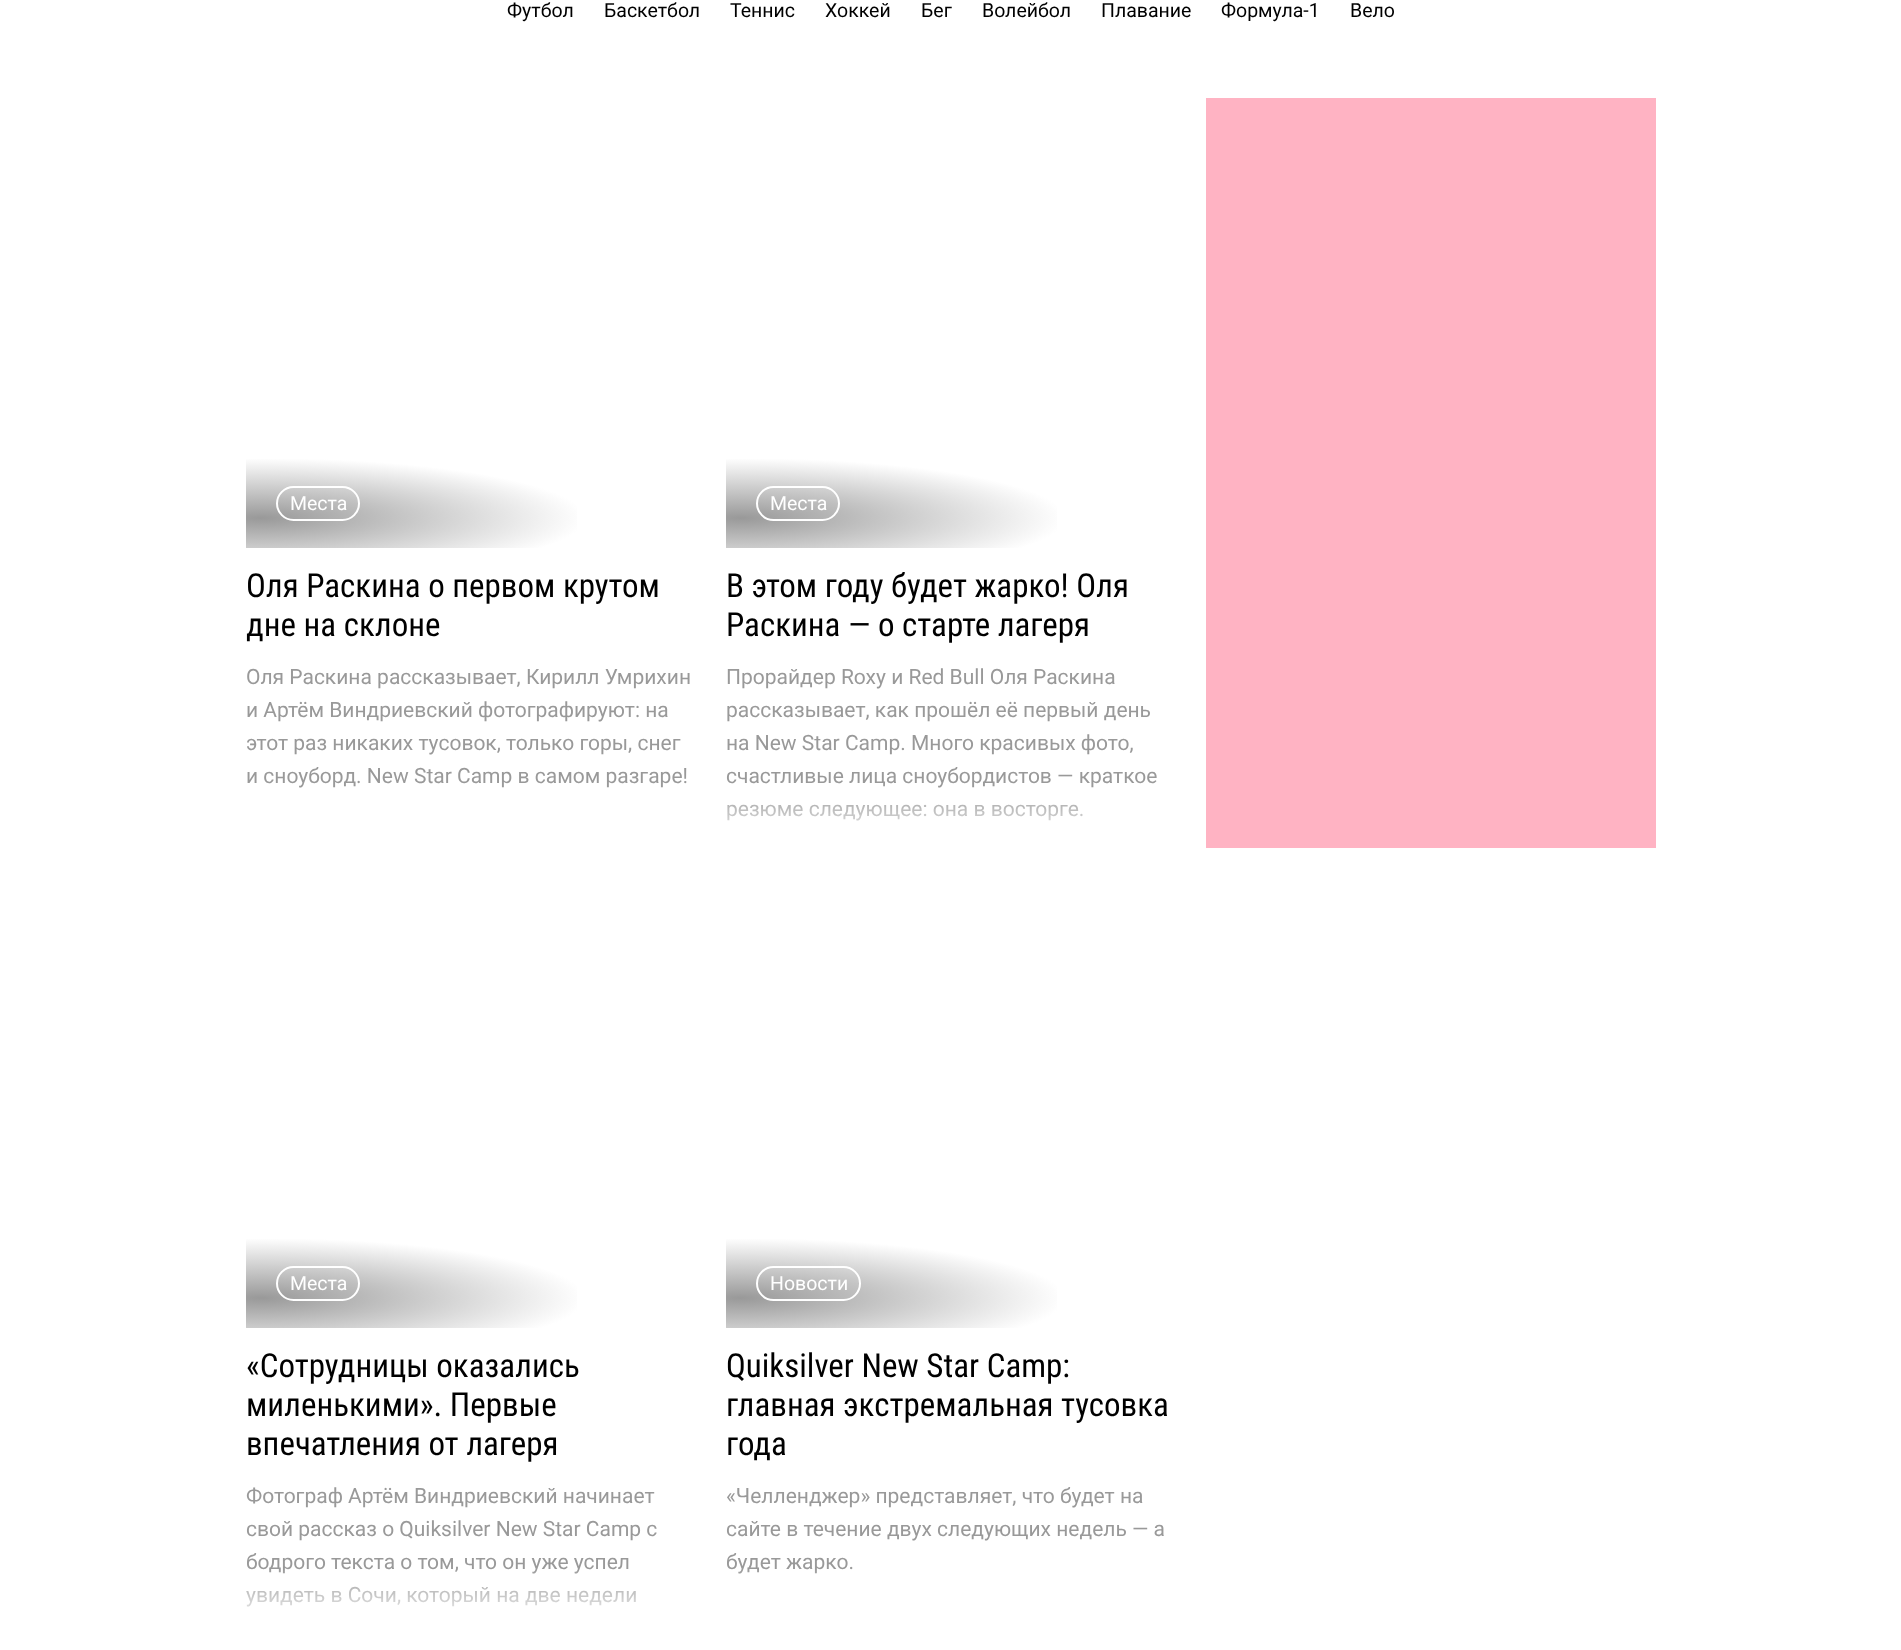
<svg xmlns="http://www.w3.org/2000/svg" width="1901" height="1650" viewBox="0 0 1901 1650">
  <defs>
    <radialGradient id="g1" gradientUnits="userSpaceOnUse" cx="0" cy="0" r="1" gradientTransform="matrix(405 0 0 75 261 518)"><stop offset="0" stop-color="#999999"/><stop offset="0.8" stop-color="#ffffff"/><stop offset="0.95" stop-color="#ffffff"/></radialGradient>
    <radialGradient id="g2" gradientUnits="userSpaceOnUse" cx="0" cy="0" r="1" gradientTransform="matrix(405 0 0 75 741 518)"><stop offset="0" stop-color="#999999"/><stop offset="0.8" stop-color="#ffffff"/><stop offset="0.95" stop-color="#ffffff"/></radialGradient>
    <linearGradient id="g3" gradientUnits="userSpaceOnUse" x1="951" y1="788" x2="951" y2="848"><stop offset="0" stop-color="#ffffff" stop-opacity="0"/><stop offset="1" stop-color="#ffffff"/></linearGradient>
    <radialGradient id="g4" gradientUnits="userSpaceOnUse" cx="0" cy="0" r="1" gradientTransform="matrix(405 0 0 75 261 1298)"><stop offset="0" stop-color="#999999"/><stop offset="0.8" stop-color="#ffffff"/><stop offset="0.95" stop-color="#ffffff"/></radialGradient>
    <linearGradient id="g5" gradientUnits="userSpaceOnUse" x1="471" y1="1568" x2="471" y2="1628"><stop offset="0" stop-color="#ffffff" stop-opacity="0"/><stop offset="1" stop-color="#ffffff"/></linearGradient>
    <radialGradient id="g6" gradientUnits="userSpaceOnUse" cx="0" cy="0" r="1" gradientTransform="matrix(405 0 0 75 741 1298)"><stop offset="0" stop-color="#999999"/><stop offset="0.8" stop-color="#ffffff"/><stop offset="0.95" stop-color="#ffffff"/></radialGradient>
    <linearGradient id="g7" gradientUnits="userSpaceOnUse" x1="951" y1="1568" x2="951" y2="1628"><stop offset="0" stop-color="#ffffff" stop-opacity="0"/><stop offset="1" stop-color="#ffffff"/></linearGradient>
  </defs>
  <rect width="100%" height="100%" fill="#ffffff"/>
  <text x="507" y="17" font-family="Roboto" font-size="19.5" fill="#000000">Футбол</text>
  <text x="604" y="17" font-family="Roboto" font-size="19.5" fill="#000000">Баскетбол</text>
  <text x="730" y="17" font-family="Roboto" font-size="19.5" fill="#000000">Теннис</text>
  <text x="825" y="17" font-family="Roboto" font-size="19.5" fill="#000000">Хоккей</text>
  <text x="921" y="17" font-family="Roboto" font-size="19.5" fill="#000000">Бег</text>
  <text x="982" y="17" font-family="Roboto" font-size="19.5" fill="#000000">Волейбол</text>
  <text x="1101" y="17" font-family="Roboto" font-size="19.5" fill="#000000">Плавание</text>
  <text x="1221" y="17" font-family="Roboto" font-size="19.5" fill="#000000">Формула-1</text>
  <text x="1350" y="17" font-family="Roboto" font-size="19.5" fill="#000000">Вело</text>
  <rect x="246" y="459" width="331" height="89" fill="url(#g1)"/>
  <rect x="277" y="487" width="82" height="33" rx="16.5" fill="none" stroke="#ffffff" stroke-width="2"/>
  <text x="290" y="510" font-family="Roboto" font-size="19.5" fill="#ffffff">Места</text>
  <text x="246" y="597" font-family="Roboto Condensed" font-size="33" fill="#000000">Оля Раскина о первом крутом</text>
  <text x="246" y="636" font-family="Roboto Condensed" font-size="33" fill="#000000">дне на склоне</text>
  <text x="246" y="684" font-family="Roboto" font-size="21" fill="#999999">Оля Раскина рассказывает, Кирилл Умрихин</text>
  <text x="246" y="717" font-family="Roboto" font-size="21" fill="#999999">и Артём Виндриевский фотографируют: на</text>
  <text x="246" y="750" font-family="Roboto" font-size="21" fill="#999999">этот раз никаких тусовок, только горы, снег</text>
  <text x="246" y="783" font-family="Roboto" font-size="21" fill="#999999">и сноуборд. New Star Camp в самом разгаре!</text>
  <rect x="726" y="459" width="331" height="89" fill="url(#g2)"/>
  <rect x="757" y="487" width="82" height="33" rx="16.5" fill="none" stroke="#ffffff" stroke-width="2"/>
  <text x="770" y="510" font-family="Roboto" font-size="19.5" fill="#ffffff">Места</text>
  <text x="726" y="597" font-family="Roboto Condensed" font-size="33" fill="#000000">В этом году будет жарко! Оля</text>
  <text x="726" y="636" font-family="Roboto Condensed" font-size="33" fill="#000000">Раскина — о старте лагеря</text>
  <text x="726" y="684" font-family="Roboto" font-size="21" fill="#999999">Прорайдер Roxy и Red Bull Оля Раскина</text>
  <text x="726" y="717" font-family="Roboto" font-size="21" fill="#999999">рассказывает, как прошёл её первый день</text>
  <text x="726" y="750" font-family="Roboto" font-size="21" fill="#999999">на New Star Camp. Много красивых фото,</text>
  <text x="726" y="783" font-family="Roboto" font-size="21" fill="#999999">счастливые лица сноубордистов — краткое</text>
  <text x="726" y="816" font-family="Roboto" font-size="21" fill="#999999">резюме следующее: она в восторге.</text>
  <rect x="727" y="804" width="356" height="17" fill="url(#g3)"/>
  <rect x="1206" y="98" width="450" height="750" fill="#ffb3c3"/>
  <rect x="246" y="1239" width="331" height="89" fill="url(#g4)"/>
  <rect x="277" y="1267" width="82" height="33" rx="16.5" fill="none" stroke="#ffffff" stroke-width="2"/>
  <text x="290" y="1290" font-family="Roboto" font-size="19.5" fill="#ffffff">Места</text>
  <text x="246" y="1377" font-family="Roboto Condensed" font-size="33" fill="#000000">«Сотрудницы оказались</text>
  <text x="246" y="1416" font-family="Roboto Condensed" font-size="33" fill="#000000">миленькими». Первые</text>
  <text x="246" y="1455" font-family="Roboto Condensed" font-size="33" fill="#000000">впечатления от лагеря</text>
  <text x="246" y="1503" font-family="Roboto" font-size="21" fill="#999999">Фотограф Артём Виндриевский начинает</text>
  <text x="246" y="1536" font-family="Roboto" font-size="21" fill="#999999">свой рассказ о Quiksilver New Star Camp с</text>
  <text x="246" y="1569" font-family="Roboto" font-size="21" fill="#999999">бодрого текста о том, что он уже успел</text>
  <text x="246" y="1602" font-family="Roboto" font-size="21" fill="#999999">увидеть в Сочи, который на две недели</text>
  <rect x="246" y="1570" width="390" height="37" fill="url(#g5)"/>
  <rect x="726" y="1239" width="331" height="89" fill="url(#g6)"/>
  <rect x="757" y="1267" width="103" height="33" rx="16.5" fill="none" stroke="#ffffff" stroke-width="2"/>
  <text x="770" y="1290" font-family="Roboto" font-size="19.5" fill="#ffffff">Новости</text>
  <text x="726" y="1377" font-family="Roboto Condensed" font-size="33" fill="#000000">Quiksilver New Star Camp:</text>
  <text x="726" y="1416" font-family="Roboto Condensed" font-size="33" fill="#000000">главная экстремальная тусовка</text>
  <text x="726" y="1455" font-family="Roboto Condensed" font-size="33" fill="#000000">года</text>
  <text x="726" y="1503" font-family="Roboto" font-size="21" fill="#999999">«Челленджер» представляет, что будет на</text>
  <text x="726" y="1536" font-family="Roboto" font-size="21" fill="#999999">сайте в течение двух следующих недель — а</text>
  <text x="726" y="1569" font-family="Roboto" font-size="21" fill="#999999">будет жарко.</text>
  <rect x="738" y="1570" width="79" height="4" fill="url(#g7)"/>
</svg>
